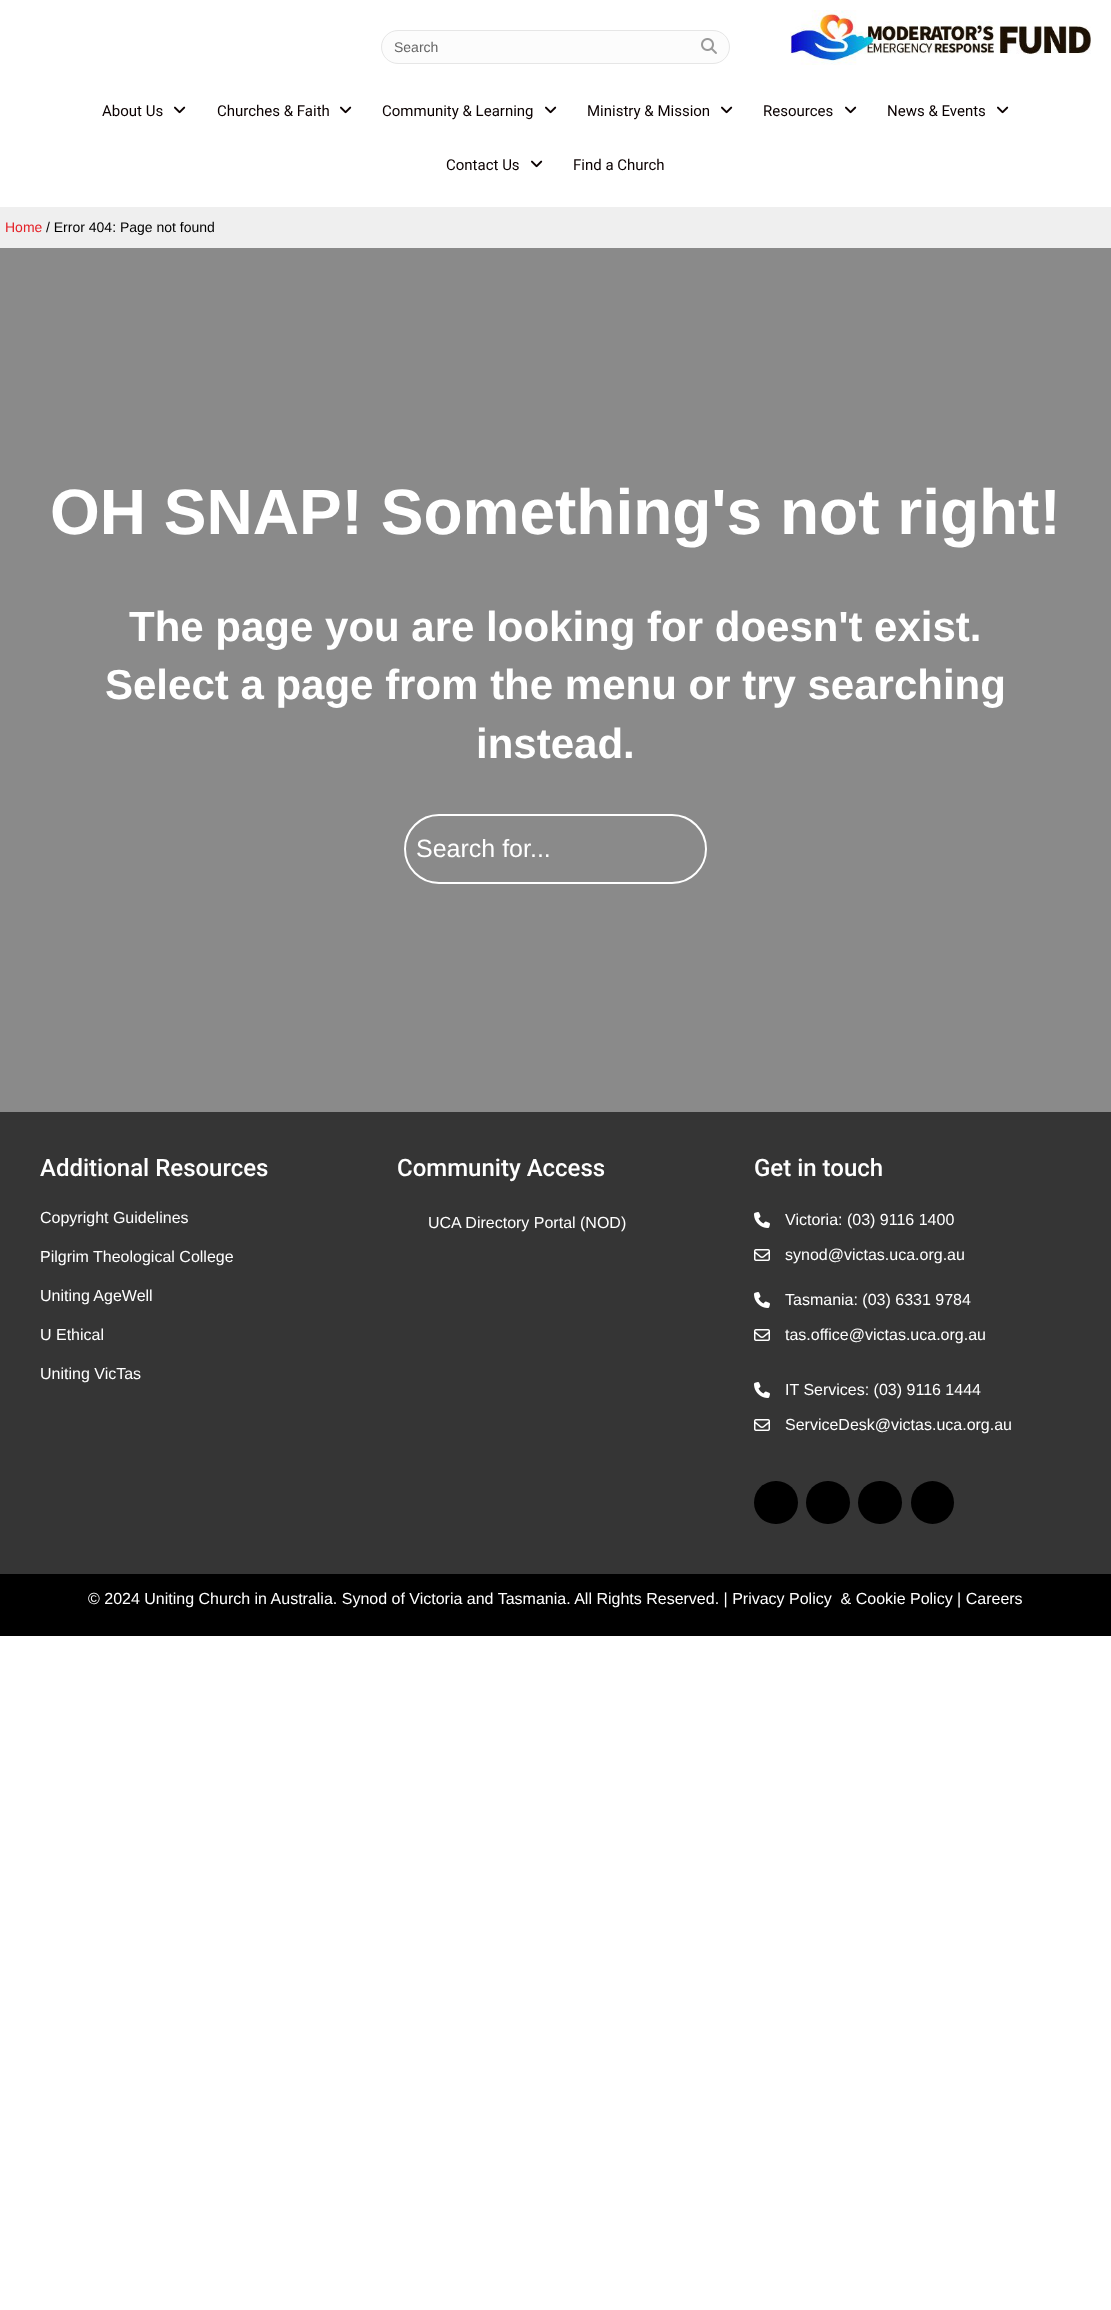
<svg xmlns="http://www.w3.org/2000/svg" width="1111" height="2310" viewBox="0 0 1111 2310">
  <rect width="100%" height="100%" fill="#ffffff"/>
  <rect x="381.5" y="30.5" width="348" height="33" rx="16.5" fill="#fcfcfc" stroke="#e6e6e6"/>
  <text x="394" y="52" font-family="Liberation Sans" font-size="14" fill="#656565">Search</text>
  <image x="701" y="38" width="16" height="16" href="img1.png"/>
  <image x="790" y="10" width="301" height="55" href="img2.png"/>
  <text x="102" y="116" font-family="Roboto" font-size="15" fill="#0a0000">About Us</text>
  <image x="174" y="106" width="12" height="8" href="img3.png"/>
  <text x="217" y="116" font-family="Roboto" font-size="15" fill="#0a0000">Churches &amp; Faith</text>
  <image x="340" y="106" width="12" height="8" href="img3.png"/>
  <text x="382" y="116" font-family="Roboto" font-size="15" fill="#0a0000">Community &amp; Learning</text>
  <image x="545" y="106" width="12" height="8" href="img3.png"/>
  <text x="587" y="116" font-family="Roboto" font-size="15" fill="#0a0000">Ministry &amp; Mission</text>
  <image x="721" y="106" width="12" height="8" href="img3.png"/>
  <text x="763" y="116" font-family="Roboto" font-size="15" fill="#0a0000">Resources</text>
  <image x="845" y="106" width="12" height="8" href="img3.png"/>
  <text x="887" y="116" font-family="Roboto" font-size="15" fill="#0a0000">News &amp; Events</text>
  <image x="997" y="106" width="12" height="8" href="img3.png"/>
  <text x="446" y="170" font-family="Roboto" font-size="15" fill="#0a0000">Contact Us</text>
  <image x="531" y="160" width="12" height="8" href="img3.png"/>
  <text x="573" y="170" font-family="Roboto" font-size="15" fill="#0a0000">Find a Church</text>
  <rect x="0" y="207" width="1111" height="41" fill="#efefef"/>
  <text x="5" y="232" font-family="Liberation Sans" font-size="14" fill="#e42127">Home</text>
  <text x="46" y="232" font-family="Liberation Sans" font-size="14" fill="#000000">/ Error 404: Page not found</text>
  <rect x="0" y="248" width="1111" height="864" fill="#8a8a8a"/>
  <text x="50" y="534" font-family="Liberation Sans" font-size="64" font-weight="bold" fill="#ffffff">OH SNAP! Something's not right!</text>
  <text x="129" y="641" font-family="Liberation Sans" font-size="42" font-weight="bold" fill="#ffffff">The page you are looking for doesn't exist.</text>
  <text x="105" y="699" font-family="Liberation Sans" font-size="42" font-weight="bold" fill="#ffffff">Select a page from the menu or try searching</text>
  <text x="476" y="758" font-family="Liberation Sans" font-size="42" font-weight="bold" fill="#ffffff">instead.</text>
  <rect x="405" y="815" width="301" height="68" rx="34" fill="none" stroke="#ffffff" stroke-width="2"/>
  <text x="416" y="857" font-family="Liberation Sans" font-size="25" fill="#ffffff">Search for...</text>
  <rect x="0" y="1112" width="1111" height="462" fill="#353535"/>
  <text x="40" y="1176" font-family="Roboto" font-size="24" font-weight="500" fill="#ffffff">Additional Resources</text>
  <text x="40" y="1223" font-family="Liberation Sans" font-size="16" fill="#ffffff">Copyright Guidelines</text>
  <text x="40" y="1262" font-family="Liberation Sans" font-size="16" fill="#ffffff">Pilgrim Theological College</text>
  <text x="40" y="1301" font-family="Liberation Sans" font-size="16" fill="#ffffff">Uniting AgeWell</text>
  <text x="40" y="1340" font-family="Liberation Sans" font-size="16" fill="#ffffff">U Ethical</text>
  <text x="40" y="1379" font-family="Liberation Sans" font-size="16" fill="#ffffff">Uniting VicTas</text>
  <text x="397" y="1176" font-family="Roboto" font-size="24" font-weight="500" fill="#ffffff">Community Access</text>
  <text x="428" y="1228" font-family="Liberation Sans" font-size="16" fill="#ffffff">UCA Directory Portal (NOD)</text>
  <text x="754" y="1176" font-family="Roboto" font-size="24" font-weight="500" fill="#ffffff">Get in touch</text>
  <image x="754" y="1212" width="16" height="16" href="img4.png"/>
  <text x="785" y="1225" font-family="Liberation Sans" font-size="16" fill="#ffffff">Victoria: (03) 9116 1400</text>
  <image x="754" y="1249" width="16" height="12" href="img5.png"/>
  <text x="785" y="1260" font-family="Liberation Sans" font-size="16" fill="#ffffff">synod@victas.uca.org.au</text>
  <image x="754" y="1292" width="16" height="16" href="img4.png"/>
  <text x="785" y="1305" font-family="Liberation Sans" font-size="16" fill="#ffffff">Tasmania: (03) 6331 9784</text>
  <image x="754" y="1329" width="16" height="12" href="img5.png"/>
  <text x="785" y="1340" font-family="Liberation Sans" font-size="16" fill="#ffffff">tas.office@victas.uca.org.au</text>
  <image x="754" y="1382" width="16" height="16" href="img4.png"/>
  <text x="785" y="1395" font-family="Liberation Sans" font-size="16" fill="#ffffff">IT Services: (03) 9116 1444</text>
  <image x="754" y="1419" width="16" height="12" href="img5.png"/>
  <text x="785" y="1430" font-family="Liberation Sans" font-size="16" fill="#ffffff">ServiceDesk@victas.uca.org.au</text>
  <rect x="754" y="1481" width="44" height="43" rx="21.5" fill="#000000"/>
  <rect x="806" y="1481" width="44" height="43" rx="21.5" fill="#000000"/>
  <rect x="858" y="1481" width="44" height="43" rx="21.5" fill="#000000"/>
  <circle cx="932.5" cy="1502.5" r="21.5" fill="#000000"/>
  <rect x="0" y="1574" width="1111" height="62" fill="#000000"/>
  <text x="88" y="1604" font-family="Liberation Sans" font-size="16" fill="#ffffff" xml:space="preserve">© 2024 Uniting Church in Australia. Synod of Victoria and Tasmania. All Rights Reserved. | Privacy Policy  &amp; Cookie Policy | Careers</text>
</svg>
